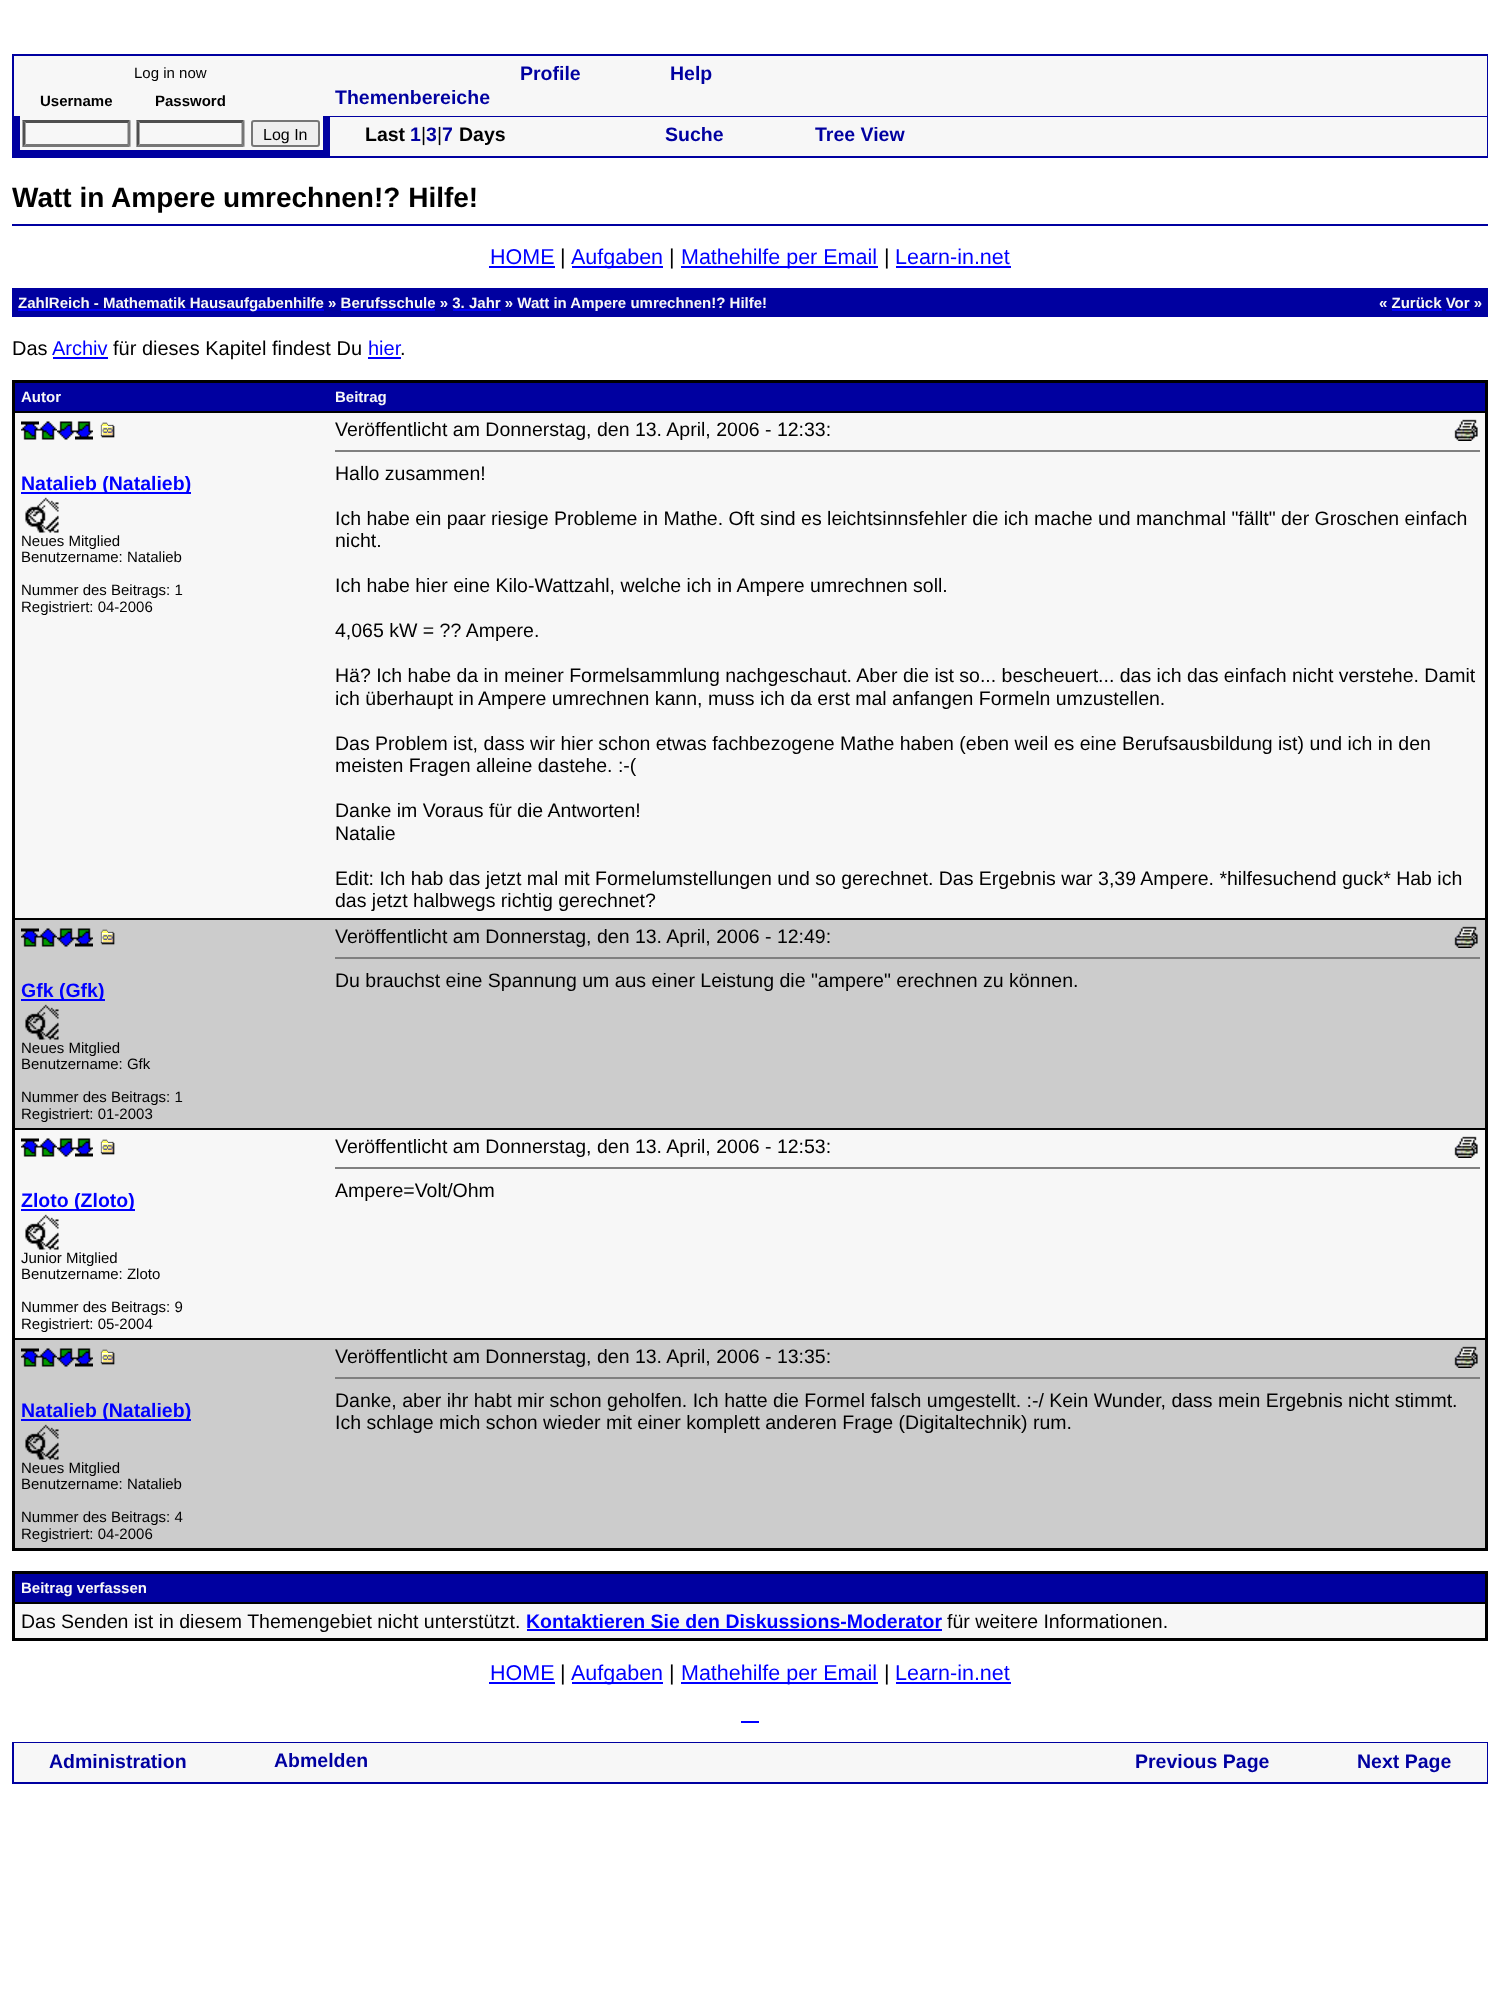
<svg xmlns="http://www.w3.org/2000/svg" width="1499" height="2013" viewBox="0 0 1499 2013">
  <rect width="100%" height="100%" fill="#ffffff"/>
  <rect x="12" y="54" width="1476" height="104" fill="#0000a0"/>
  <rect x="14" y="56" width="1473" height="60" fill="#f7f7f7"/>
  <text x="134" y="78" font-family="Liberation Sans" font-size="15" fill="#000000">Log in now</text>
  <rect x="20" y="116" width="303" height="34" fill="#f7f7f7"/>
  <text x="40" y="106" font-family="Liberation Sans" font-size="15" font-weight="bold" fill="#000000">Username</text>
  <text x="155" y="106" font-family="Liberation Sans" font-size="15" font-weight="bold" fill="#000000">Password</text>
  <path d="M22 120H130L128 123H26Z" fill="#4f4f4f"/>
  <path d="M130.5 120V147L127.5 144V123Z" fill="#767676"/>
  <path d="M130 147H22L26 144H128Z" fill="#767676"/>
  <path d="M22.5 147V120L25.5 123V144Z" fill="#4f4f4f"/>
  <path d="M136 120H244L242 123H140Z" fill="#4f4f4f"/>
  <path d="M244.5 120V147L241.5 144V123Z" fill="#767676"/>
  <path d="M244 147H136L140 144H242Z" fill="#767676"/>
  <path d="M136.5 147V120L139.5 123V144Z" fill="#4f4f4f"/>
  <rect x="252" y="121" width="67" height="25" rx="2" fill="#efefef" stroke="#767676" stroke-width="2"/>
  <text x="263" y="140" font-family="Liberation Sans" font-size="16" fill="#000000">Log In</text>
  <text x="520" y="80" font-family="Liberation Sans" font-size="19.5" font-weight="bold" fill="#0000a0">Profile</text>
  <text x="670" y="80" font-family="Liberation Sans" font-size="19.5" font-weight="bold" fill="#0000a0">Help</text>
  <text x="335" y="104" font-family="Liberation Sans" font-size="19.5" font-weight="bold" fill="#0000a0">Themenbereiche</text>
  <rect x="330" y="117" width="1157" height="39" fill="#f7f7f7"/>
  <text x="365" y="141" font-family="Liberation Sans" font-size="19.5" font-weight="bold" fill="#000000">Last</text>
  <text x="410" y="141" font-family="Liberation Sans" font-size="19.5" font-weight="bold" fill="#0000a0">1</text>
  <text x="421" y="141" font-family="Liberation Sans" font-size="19.5" fill="#000000">|</text>
  <text x="426" y="141" font-family="Liberation Sans" font-size="19.5" font-weight="bold" fill="#0000a0">3</text>
  <text x="437" y="141" font-family="Liberation Sans" font-size="19.5" fill="#000000">|</text>
  <text x="442" y="141" font-family="Liberation Sans" font-size="19.5" font-weight="bold" fill="#0000a0">7</text>
  <text x="459" y="141" font-family="Liberation Sans" font-size="19.5" font-weight="bold" fill="#000000">Days</text>
  <text x="665" y="141" font-family="Liberation Sans" font-size="19.5" font-weight="bold" fill="#0000a0">Suche</text>
  <text x="815" y="141" font-family="Liberation Sans" font-size="19.5" font-weight="bold" fill="#0000a0">Tree View</text>
  <rect x="12" y="224" width="1476" height="2" fill="#0000a0"/>
  <text x="12" y="207" font-family="Liberation Sans" font-size="28" font-weight="bold" fill="#000000">Watt in Ampere umrechnen!? Hilfe!</text>
  <text x="490" y="264" font-family="Liberation Sans" font-size="21.5" fill="#0000ff">HOME</text>
  <rect x="489" y="266" width="66" height="2" fill="#0000ff"/>
  <text x="560" y="264" font-family="Liberation Sans" font-size="21.5" fill="#000000">|</text>
  <rect x="572" y="266" width="91" height="2" fill="#0000ff"/>
  <text x="571" y="264" font-family="Liberation Sans" font-size="21.5" fill="#0000ff">Aufgaben</text>
  <text x="669" y="264" font-family="Liberation Sans" font-size="21.5" fill="#000000">|</text>
  <rect x="681" y="266" width="197" height="2" fill="#0000ff"/>
  <text x="681" y="264" font-family="Liberation Sans" font-size="21.5" fill="#0000ff">Mathehilfe per Email</text>
  <text x="884" y="264" font-family="Liberation Sans" font-size="21.5" fill="#000000">|</text>
  <text x="895" y="264" font-family="Liberation Sans" font-size="21.5" fill="#0000ff">Learn-in.net</text>
  <rect x="896" y="266" width="115" height="2" fill="#0000ff"/>
  <rect x="12" y="288" width="1476" height="29" fill="#0000a0"/>
  <rect x="18" y="309" width="306" height="2" fill="#0000ff"/>
  <text x="18" y="308" font-family="Liberation Sans" font-size="15" font-weight="bold" fill="#f7f7f7">ZahlReich - Mathematik Hausaufgabenhilfe » Berufsschule » 3. Jahr » Watt in Ampere umrechnen!? Hilfe!</text>
  <rect x="341" y="309" width="94" height="2" fill="#0000ff"/>
  <rect x="453" y="309" width="48" height="2" fill="#0000ff"/>
  <text x="1379" y="308" font-family="Liberation Sans" font-size="15" font-weight="bold" fill="#f7f7f7">« Zurück Vor »</text>
  <rect x="1392" y="309" width="50" height="2" fill="#0000ff"/>
  <rect x="1446" y="309" width="24" height="2" fill="#0000ff"/>
  <text x="12" y="355" font-family="Liberation Sans" font-size="20" fill="#000000">Das</text>
  <text x="52" y="355" font-family="Liberation Sans" font-size="20" fill="#0000ff">Archiv</text>
  <rect x="53" y="357" width="55" height="2" fill="#0000ff"/>
  <text x="113" y="355" font-family="Liberation Sans" font-size="20" fill="#000000">für dieses Kapitel findest Du</text>
  <text x="368" y="355" font-family="Liberation Sans" font-size="20" fill="#0000ff">hier</text>
  <rect x="368" y="357" width="33" height="2" fill="#0000ff"/>
  <text x="400" y="355" font-family="Liberation Sans" font-size="20" fill="#000000">.</text>
  <rect x="12" y="380" width="1476" height="1171" fill="#000000"/>
  <rect x="15" y="383" width="1470" height="28" fill="#0000a0"/>
  <text x="21" y="402" font-family="Liberation Sans" font-size="15" font-weight="bold" fill="#f7f7f7">Autor</text>
  <text x="335" y="402" font-family="Liberation Sans" font-size="15" font-weight="bold" fill="#f7f7f7">Beitrag</text>
  <rect x="15" y="413" width="1470" height="505" fill="#f7f7f7"/>
  <image x="21" y="421" width="18" height="19" href="img1.png"/>
  <image x="39" y="421" width="18" height="19" href="img2.png"/>
  <image x="57" y="421" width="18" height="19" href="img3.png"/>
  <image x="75" y="421" width="18" height="19" href="img4.png"/>
  <image x="100" y="422" width="15" height="16" href="img5.png"/>
  <rect x="21" y="492" width="170" height="2" fill="#0000ff"/>
  <text x="21" y="490" font-family="Liberation Sans" font-size="19.5" font-weight="bold" fill="#0000ff">Natalieb (Natalieb)</text>
  <image x="25" y="497" width="34" height="36" href="img6.png"/>
  <text x="21" y="546" font-family="Liberation Sans" font-size="15" fill="#000000">Neues Mitglied</text>
  <text x="21" y="562" font-family="Liberation Sans" font-size="15" fill="#000000">Benutzername: Natalieb</text>
  <text x="21" y="595" font-family="Liberation Sans" font-size="15" fill="#000000">Nummer des Beitrags: 1</text>
  <text x="21" y="612" font-family="Liberation Sans" font-size="15" fill="#000000">Registriert: 04-2006</text>
  <text x="335" y="436" font-family="Liberation Sans" font-size="19.5" fill="#000000">Veröffentlicht am Donnerstag, den 13. April, 2006 - 12:33:</text>
  <image x="1454" y="419" width="24" height="22" href="img7.png"/>
  <rect x="335" y="450" width="1145" height="2" fill="#808080"/>
  <text x="335" y="480" font-family="Liberation Sans" font-size="19.5" fill="#000000">Hallo zusammen!</text>
  <text x="335" y="525" font-family="Liberation Sans" font-size="19.5" fill="#000000">Ich habe ein paar riesige Probleme in Mathe. Oft sind es leichtsinnsfehler die ich mache und manchmal "fällt" der Groschen einfach</text>
  <text x="335" y="547" font-family="Liberation Sans" font-size="19.5" fill="#000000">nicht.</text>
  <text x="335" y="592" font-family="Liberation Sans" font-size="19.5" fill="#000000">Ich habe hier eine Kilo-Wattzahl, welche ich in Ampere umrechnen soll.</text>
  <text x="335" y="637" font-family="Liberation Sans" font-size="19.5" fill="#000000">4,065 kW = ?? Ampere.</text>
  <text x="335" y="682" font-family="Liberation Sans" font-size="19.5" fill="#000000">Hä? Ich habe da in meiner Formelsammlung nachgeschaut. Aber die ist so... bescheuert... das ich das einfach nicht verstehe. Damit</text>
  <text x="335" y="705" font-family="Liberation Sans" font-size="19.5" fill="#000000">ich überhaupt in Ampere umrechnen kann, muss ich da erst mal anfangen Formeln umzustellen.</text>
  <text x="335" y="750" font-family="Liberation Sans" font-size="19.5" fill="#000000">Das Problem ist, dass wir hier schon etwas fachbezogene Mathe haben (eben weil es eine Berufsausbildung ist) und ich in den</text>
  <text x="335" y="772" font-family="Liberation Sans" font-size="19.5" fill="#000000">meisten Fragen alleine dastehe. :-(</text>
  <text x="335" y="817" font-family="Liberation Sans" font-size="19.5" fill="#000000">Danke im Voraus für die Antworten!</text>
  <text x="335" y="840" font-family="Liberation Sans" font-size="19.5" fill="#000000">Natalie</text>
  <text x="335" y="885" font-family="Liberation Sans" font-size="19.5" fill="#000000">Edit: Ich hab das jetzt mal mit Formelumstellungen und so gerechnet. Das Ergebnis war 3,39 Ampere. *hilfesuchend guck* Hab ich</text>
  <text x="335" y="907" font-family="Liberation Sans" font-size="19.5" fill="#000000">das jetzt halbwegs richtig gerechnet?</text>
  <rect x="15" y="920" width="1470" height="208" fill="#cccccc"/>
  <text x="335" y="943" font-family="Liberation Sans" font-size="19.5" fill="#000000">Veröffentlicht am Donnerstag, den 13. April, 2006 - 12:49:</text>
  <image x="1454" y="926" width="24" height="22" href="img8.png"/>
  <rect x="335" y="957" width="1145" height="2" fill="#808080"/>
  <text x="335" y="987" font-family="Liberation Sans" font-size="19.5" fill="#000000">Du brauchst eine Spannung um aus einer Leistung die "ampere" erechnen zu können.</text>
  <image x="21" y="928" width="18" height="19" href="img9.png"/>
  <image x="39" y="928" width="18" height="19" href="img10.png"/>
  <image x="57" y="928" width="18" height="19" href="img11.png"/>
  <image x="75" y="928" width="18" height="19" href="img12.png"/>
  <image x="100" y="929" width="15" height="16" href="img13.png"/>
  <rect x="21" y="999" width="84" height="2" fill="#0000ff"/>
  <text x="21" y="997" font-family="Liberation Sans" font-size="19.5" font-weight="bold" fill="#0000ff">Gfk (Gfk)</text>
  <image x="25" y="1004" width="34" height="36" href="img14.png"/>
  <text x="21" y="1053" font-family="Liberation Sans" font-size="15" fill="#000000">Neues Mitglied</text>
  <text x="21" y="1069" font-family="Liberation Sans" font-size="15" fill="#000000">Benutzername: Gfk</text>
  <text x="21" y="1102" font-family="Liberation Sans" font-size="15" fill="#000000">Nummer des Beitrags: 1</text>
  <text x="21" y="1119" font-family="Liberation Sans" font-size="15" fill="#000000">Registriert: 01-2003</text>
  <rect x="15" y="1130" width="1470" height="208" fill="#f7f7f7"/>
  <text x="335" y="1153" font-family="Liberation Sans" font-size="19.5" fill="#000000">Veröffentlicht am Donnerstag, den 13. April, 2006 - 12:53:</text>
  <image x="1454" y="1136" width="24" height="22" href="img7.png"/>
  <rect x="335" y="1167" width="1145" height="2" fill="#808080"/>
  <text x="335" y="1197" font-family="Liberation Sans" font-size="19.5" fill="#000000">Ampere=Volt/Ohm</text>
  <image x="21" y="1138" width="18" height="19" href="img1.png"/>
  <image x="39" y="1138" width="18" height="19" href="img2.png"/>
  <image x="57" y="1138" width="18" height="19" href="img3.png"/>
  <image x="75" y="1138" width="18" height="19" href="img4.png"/>
  <image x="100" y="1139" width="15" height="16" href="img5.png"/>
  <rect x="21" y="1209" width="114" height="2" fill="#0000ff"/>
  <text x="21" y="1207" font-family="Liberation Sans" font-size="19.5" font-weight="bold" fill="#0000ff">Zloto (Zloto)</text>
  <image x="25" y="1214" width="34" height="36" href="img6.png"/>
  <text x="21" y="1263" font-family="Liberation Sans" font-size="15" fill="#000000">Junior Mitglied</text>
  <text x="21" y="1279" font-family="Liberation Sans" font-size="15" fill="#000000">Benutzername: Zloto</text>
  <text x="21" y="1312" font-family="Liberation Sans" font-size="15" fill="#000000">Nummer des Beitrags: 9</text>
  <text x="21" y="1329" font-family="Liberation Sans" font-size="15" fill="#000000">Registriert: 05-2004</text>
  <rect x="15" y="1340" width="1470" height="208" fill="#cccccc"/>
  <text x="335" y="1363" font-family="Liberation Sans" font-size="19.5" fill="#000000">Veröffentlicht am Donnerstag, den 13. April, 2006 - 13:35:</text>
  <image x="1454" y="1346" width="24" height="22" href="img8.png"/>
  <rect x="335" y="1377" width="1145" height="2" fill="#808080"/>
  <text x="335" y="1407" font-family="Liberation Sans" font-size="19.5" fill="#000000">Danke, aber ihr habt mir schon geholfen. Ich hatte die Formel falsch umgestellt. :-/ Kein Wunder, dass mein Ergebnis nicht stimmt.</text>
  <text x="335" y="1429" font-family="Liberation Sans" font-size="19.5" fill="#000000">Ich schlage mich schon wieder mit einer komplett anderen Frage (Digitaltechnik) rum.</text>
  <image x="21" y="1348" width="18" height="19" href="img9.png"/>
  <image x="39" y="1348" width="18" height="19" href="img10.png"/>
  <image x="57" y="1348" width="18" height="19" href="img11.png"/>
  <image x="75" y="1348" width="18" height="19" href="img12.png"/>
  <image x="100" y="1349" width="15" height="16" href="img13.png"/>
  <rect x="21" y="1419" width="170" height="2" fill="#0000ff"/>
  <text x="21" y="1417" font-family="Liberation Sans" font-size="19.5" font-weight="bold" fill="#0000ff">Natalieb (Natalieb)</text>
  <image x="25" y="1424" width="34" height="36" href="img14.png"/>
  <text x="21" y="1473" font-family="Liberation Sans" font-size="15" fill="#000000">Neues Mitglied</text>
  <text x="21" y="1489" font-family="Liberation Sans" font-size="15" fill="#000000">Benutzername: Natalieb</text>
  <text x="21" y="1522" font-family="Liberation Sans" font-size="15" fill="#000000">Nummer des Beitrags: 4</text>
  <text x="21" y="1539" font-family="Liberation Sans" font-size="15" fill="#000000">Registriert: 04-2006</text>
  <rect x="12" y="1571" width="1476" height="70" fill="#000000"/>
  <rect x="15" y="1574" width="1470" height="28" fill="#0000a0"/>
  <text x="21" y="1593" font-family="Liberation Sans" font-size="15" font-weight="bold" fill="#f7f7f7">Beitrag verfassen</text>
  <rect x="15" y="1604" width="1470" height="34" fill="#f7f7f7"/>
  <text x="21" y="1628" font-family="Liberation Sans" font-size="19.5" fill="#000000">Das Senden ist in diesem Themengebiet nicht unterstützt.</text>
  <text x="526" y="1628" font-family="Liberation Sans" font-size="19.5" font-weight="bold" fill="#0000ff">Kontaktieren Sie den Diskussions-Moderator</text>
  <rect x="527" y="1629" width="415" height="2" fill="#0000ff"/>
  <text x="947" y="1628" font-family="Liberation Sans" font-size="19.5" fill="#000000">für weitere Informationen.</text>
  <text x="490" y="1680" font-family="Liberation Sans" font-size="21.5" fill="#0000ff">HOME</text>
  <rect x="489" y="1682" width="66" height="2" fill="#0000ff"/>
  <text x="560" y="1680" font-family="Liberation Sans" font-size="21.5" fill="#000000">|</text>
  <rect x="572" y="1682" width="91" height="2" fill="#0000ff"/>
  <text x="571" y="1680" font-family="Liberation Sans" font-size="21.5" fill="#0000ff">Aufgaben</text>
  <text x="669" y="1680" font-family="Liberation Sans" font-size="21.5" fill="#000000">|</text>
  <rect x="681" y="1682" width="197" height="2" fill="#0000ff"/>
  <text x="681" y="1680" font-family="Liberation Sans" font-size="21.5" fill="#0000ff">Mathehilfe per Email</text>
  <text x="884" y="1680" font-family="Liberation Sans" font-size="21.5" fill="#000000">|</text>
  <text x="895" y="1680" font-family="Liberation Sans" font-size="21.5" fill="#0000ff">Learn-in.net</text>
  <rect x="896" y="1682" width="115" height="2" fill="#0000ff"/>
  <rect x="741" y="1721" width="18" height="2" fill="#0000ff"/>
  <rect x="12" y="1742" width="1476" height="42" fill="#0000a0"/>
  <rect x="14" y="1743" width="1473" height="39" fill="#f7f7f7"/>
  <text x="49" y="1768" font-family="Liberation Sans" font-size="19.5" font-weight="bold" fill="#0000a0">Administration</text>
  <text x="274" y="1767" font-family="Liberation Sans" font-size="19.5" font-weight="bold" fill="#0000a0">Abmelden</text>
  <text x="1135" y="1768" font-family="Liberation Sans" font-size="19.5" font-weight="bold" fill="#0000a0">Previous Page</text>
  <text x="1357" y="1768" font-family="Liberation Sans" font-size="19.5" font-weight="bold" fill="#0000a0">Next Page</text>
</svg>
